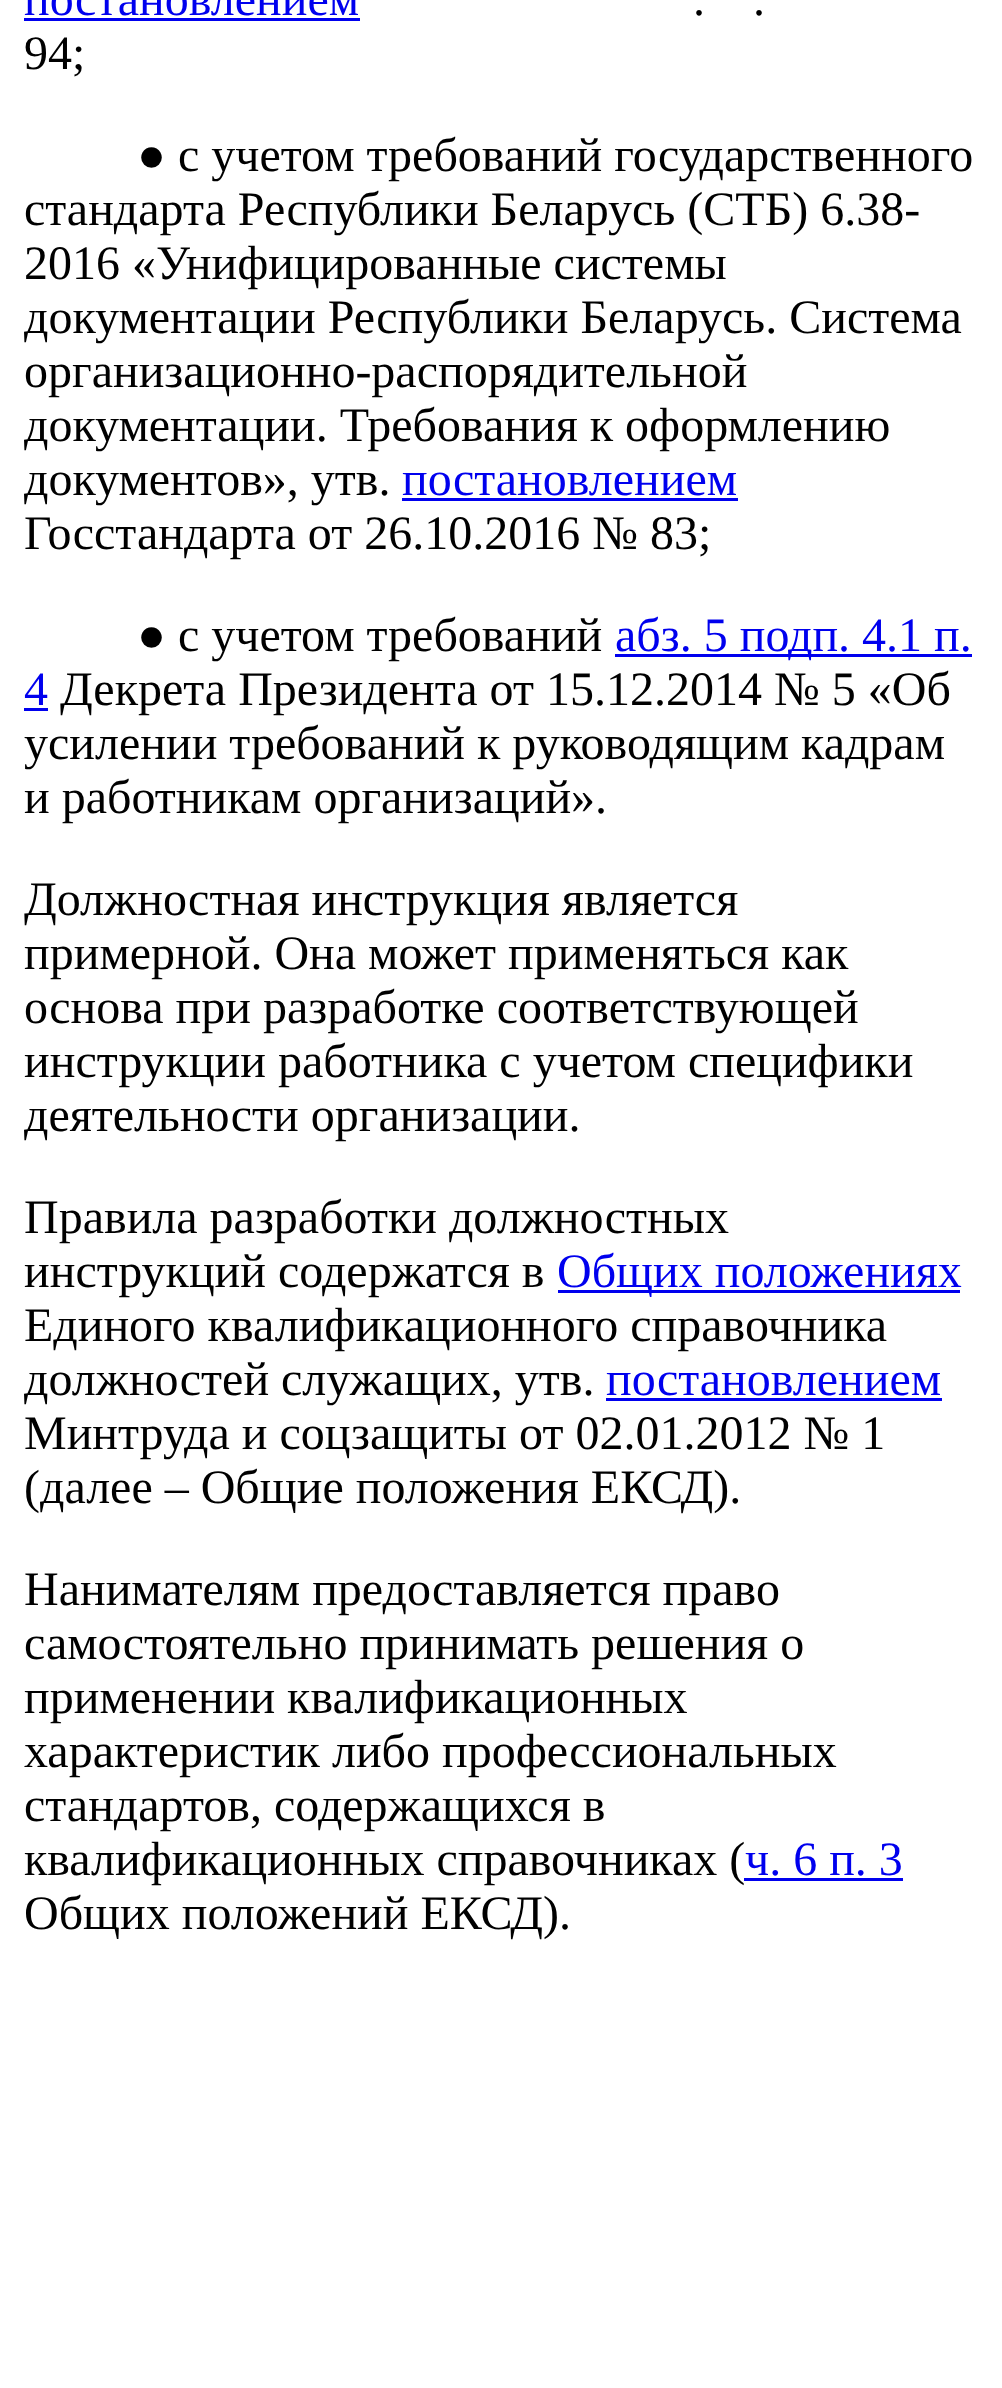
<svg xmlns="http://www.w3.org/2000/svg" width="1002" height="2388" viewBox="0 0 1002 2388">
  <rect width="100%" height="100%" fill="#ffffff"/>
  <text x="24" y="15" font-family="Liberation Serif" font-size="48" fill="#0000ee">постановлением</text>
  <rect x="24" y="18" width="336" height="3" fill="#0000ee"/>
  <text x="693" y="15" font-family="Liberation Serif" font-size="48" fill="#000000">.</text>
  <text x="753" y="15" font-family="Liberation Serif" font-size="48" fill="#000000">.</text>
  <text x="24" y="69" font-family="Liberation Serif" font-size="48" fill="#000000">94;</text>
  <text x="137" y="171" font-family="Liberation Serif" font-size="48" fill="#000000">● с учетом требований государственного</text>
  <text x="24" y="225" font-family="Liberation Serif" font-size="48" fill="#000000">стандарта Республики Беларусь (СТБ) 6.38-</text>
  <text x="24" y="279" font-family="Liberation Serif" font-size="48" fill="#000000">2016 «Унифицированные системы</text>
  <text x="24" y="333" font-family="Liberation Serif" font-size="48" fill="#000000">документации Республики Беларусь. Система</text>
  <text x="24" y="387" font-family="Liberation Serif" font-size="48" fill="#000000">организационно-распорядительной</text>
  <text x="24" y="441" font-family="Liberation Serif" font-size="48" fill="#000000">документации. Требования к оформлению</text>
  <text x="24" y="495" font-family="Liberation Serif" font-size="48" fill="#000000">документов», утв.</text>
  <text x="402" y="495" font-family="Liberation Serif" font-size="48" fill="#0000ee">постановлением</text>
  <rect x="402" y="498" width="336" height="3" fill="#0000ee"/>
  <text x="24" y="549" font-family="Liberation Serif" font-size="48" fill="#000000">Госстандарта от 26.10.2016 № 83;</text>
  <text x="137" y="651" font-family="Liberation Serif" font-size="48" fill="#000000">● с учетом требований</text>
  <rect x="615" y="654" width="357" height="3" fill="#0000ee"/>
  <text x="615" y="651" font-family="Liberation Serif" font-size="48" fill="#0000ee">абз. 5 подп. 4.1 п.</text>
  <text x="24" y="705" font-family="Liberation Serif" font-size="48" fill="#0000ee">4</text>
  <rect x="24" y="708" width="24" height="3" fill="#0000ee"/>
  <text x="60" y="705" font-family="Liberation Serif" font-size="48" fill="#000000">Декрета Президента от 15.12.2014 № 5 «Об</text>
  <text x="24" y="759" font-family="Liberation Serif" font-size="48" fill="#000000">усилении требований к руководящим кадрам</text>
  <text x="24" y="813" font-family="Liberation Serif" font-size="48" fill="#000000">и работникам организаций».</text>
  <text x="24" y="915" font-family="Liberation Serif" font-size="48" fill="#000000">Должностная инструкция является</text>
  <text x="24" y="969" font-family="Liberation Serif" font-size="48" fill="#000000">примерной. Она может применяться как</text>
  <text x="24" y="1023" font-family="Liberation Serif" font-size="48" fill="#000000">основа при разработке соответствующей</text>
  <text x="24" y="1077" font-family="Liberation Serif" font-size="48" fill="#000000">инструкции работника с учетом специфики</text>
  <text x="24" y="1131" font-family="Liberation Serif" font-size="48" fill="#000000">деятельности организации.</text>
  <text x="24" y="1233" font-family="Liberation Serif" font-size="48" fill="#000000">Правила разработки должностных</text>
  <text x="24" y="1287" font-family="Liberation Serif" font-size="48" fill="#000000">инструкций содержатся в</text>
  <rect x="558" y="1290" width="402" height="3" fill="#0000ee"/>
  <text x="557" y="1287" font-family="Liberation Serif" font-size="48" fill="#0000ee">Общих положениях</text>
  <text x="24" y="1341" font-family="Liberation Serif" font-size="48" fill="#000000">Единого квалификационного справочника</text>
  <text x="24" y="1395" font-family="Liberation Serif" font-size="48" fill="#000000">должностей служащих, утв.</text>
  <text x="606" y="1395" font-family="Liberation Serif" font-size="48" fill="#0000ee">постановлением</text>
  <rect x="606" y="1398" width="336" height="3" fill="#0000ee"/>
  <text x="24" y="1449" font-family="Liberation Serif" font-size="48" fill="#000000">Минтруда и соцзащиты от 02.01.2012 № 1</text>
  <text x="24" y="1503" font-family="Liberation Serif" font-size="48" fill="#000000">(далее – Общие положения ЕКСД).</text>
  <text x="24" y="1605" font-family="Liberation Serif" font-size="48" fill="#000000">Нанимателям предоставляется право</text>
  <text x="24" y="1659" font-family="Liberation Serif" font-size="48" fill="#000000">самостоятельно принимать решения о</text>
  <text x="24" y="1713" font-family="Liberation Serif" font-size="48" fill="#000000">применении квалификационных</text>
  <text x="24" y="1767" font-family="Liberation Serif" font-size="48" fill="#000000">характеристик либо профессиональных</text>
  <text x="24" y="1821" font-family="Liberation Serif" font-size="48" fill="#000000">стандартов, содержащихся в</text>
  <text x="24" y="1875" font-family="Liberation Serif" font-size="48" fill="#000000">квалификационных справочниках (</text>
  <text x="745" y="1875" font-family="Liberation Serif" font-size="48" fill="#0000ee">ч. 6 п. 3</text>
  <rect x="744" y="1878" width="159" height="3" fill="#0000ee"/>
  <text x="24" y="1929" font-family="Liberation Serif" font-size="48" fill="#000000">Общих положений ЕКСД).</text>
</svg>
